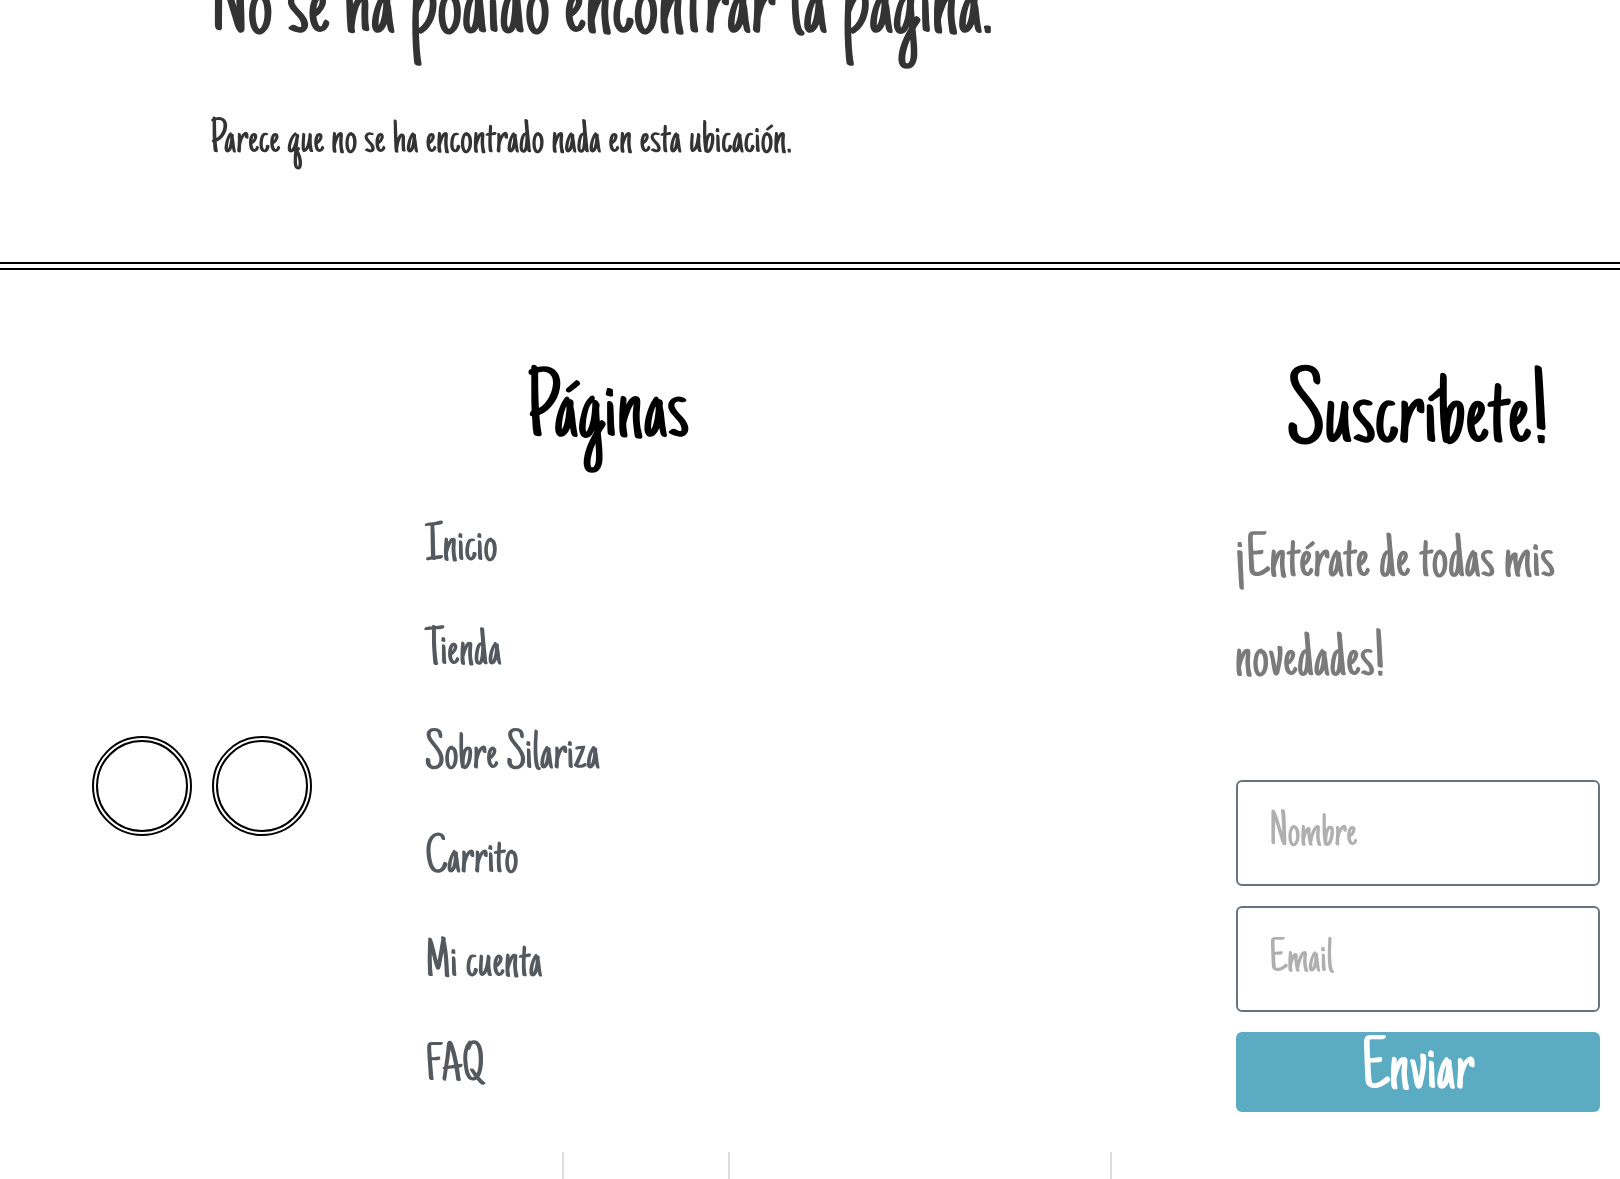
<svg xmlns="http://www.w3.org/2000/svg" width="1620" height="1179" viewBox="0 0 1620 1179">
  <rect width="100%" height="100%" fill="#ffffff"/>
  <text x="210" y="32" font-family="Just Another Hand" font-size="100" fill="#333333">No se ha podido encontrar la página.</text>
  <text x="210" y="152" font-family="Just Another Hand" font-size="50" fill="#333333">Parece que no se ha encontrado nada en esta ubicación.</text>
  <rect x="0" y="262" width="1620" height="2" fill="#000000"/>
  <rect x="0" y="268" width="1620" height="2" fill="#000000"/>
  <circle cx="142" cy="786" r="49" fill="none" stroke="#000000" stroke-width="2"/>
  <circle cx="142" cy="786" r="45" fill="none" stroke="#000000" stroke-width="2"/>
  <circle cx="262" cy="786" r="49" fill="none" stroke="#000000" stroke-width="2"/>
  <circle cx="262" cy="786" r="45" fill="none" stroke="#000000" stroke-width="2"/>
  <text x="526" y="436" font-family="Just Another Hand" font-size="100" fill="#000000">Páginas</text>
  <text x="425" y="560" font-family="Just Another Hand" font-size="56" fill="#54595f">Inicio</text>
  <text x="425" y="664" font-family="Just Another Hand" font-size="56" fill="#54595f">Tienda</text>
  <text x="425" y="768" font-family="Just Another Hand" font-size="56" fill="#54595f">Sobre Silariza</text>
  <text x="425" y="872" font-family="Just Another Hand" font-size="56" fill="#54595f">Carrito</text>
  <text x="425" y="976" font-family="Just Another Hand" font-size="56" fill="#54595f">Mi cuenta</text>
  <text x="425" y="1080" font-family="Just Another Hand" font-size="56" fill="#54595f">FAQ</text>
  <text x="1287" y="442" font-family="Just Another Hand" font-size="108" fill="#000000">Suscríbete!</text>
  <text x="1235" y="576" font-family="Just Another Hand" font-size="66" fill="#7a7a7a">¡Entérate de todas mis</text>
  <text x="1235" y="675" font-family="Just Another Hand" font-size="66" fill="#7a7a7a">novedades!</text>
  <rect x="1237" y="781" width="362" height="104" rx="5" fill="none" stroke="#69727d" stroke-width="2"/>
  <text x="1269" y="845" font-family="Just Another Hand" font-size="50" fill="#afafaf">Nombre</text>
  <rect x="1237" y="907" width="362" height="104" rx="5" fill="none" stroke="#69727d" stroke-width="2"/>
  <text x="1269" y="971" font-family="Just Another Hand" font-size="50" fill="#afafaf">Email</text>
  <rect x="1236" y="1032" width="364" height="80" rx="6" fill="#5babc2"/>
  <text x="1361" y="1088" font-family="Just Another Hand" font-size="78" fill="#ffffff">Enviar</text>
  <rect x="562" y="1152" width="2" height="27" fill="#dddddd"/>
  <rect x="728" y="1152" width="2" height="27" fill="#dddddd"/>
  <rect x="1110" y="1152" width="2" height="27" fill="#dddddd"/>
</svg>
